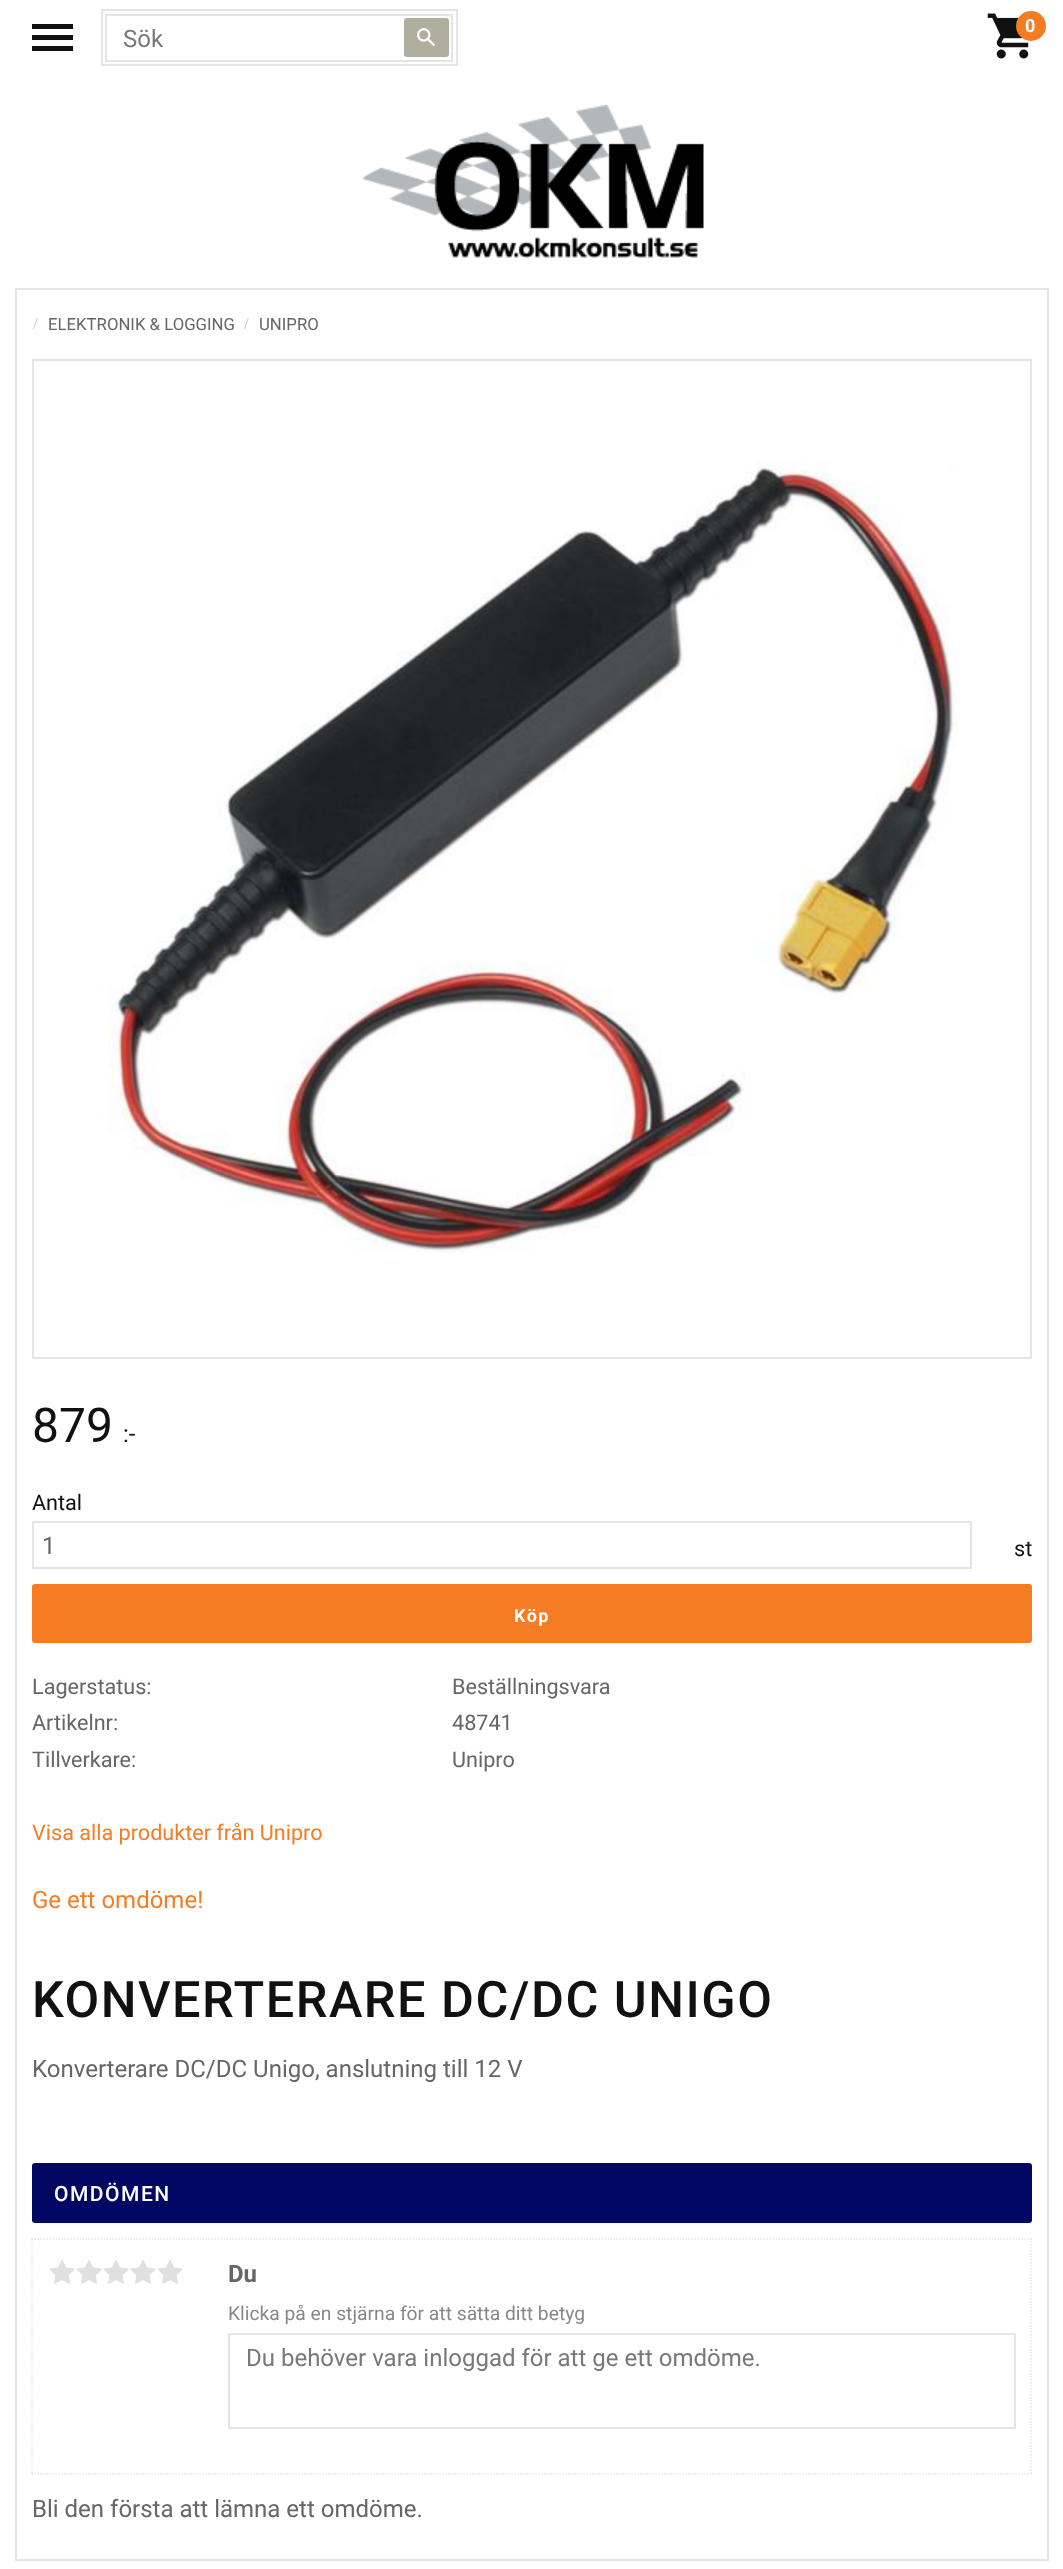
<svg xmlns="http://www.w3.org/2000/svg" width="1063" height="2569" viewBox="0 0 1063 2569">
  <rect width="100%" height="100%" fill="#ffffff"/>
  <path d="M32 24H73V29H32ZM32 40V35H73V40ZM32 51V46H73V51Z" fill="#111111"/>
  <image x="987" y="13" width="42" height="46" href="img1.png"/>
  <circle cx="1031" cy="26" r="14" fill="#f57c23" stroke="#f57c23" stroke-width="2"/>
  <text x="1025" y="32" font-family="Roboto" font-size="18" font-weight="bold" fill="#ffffff">0</text>
  <rect x="102" y="10" width="355" height="55" fill="none" stroke="#e5e5e5" stroke-width="2"/>
  <rect x="106" y="15" width="346" height="46" fill="none" stroke="#e5e5e5" stroke-width="2"/>
  <text x="123" y="47" font-family="Roboto" font-size="24" fill="#787878">Sök</text>
  <rect x="404" y="18" width="45" height="39" rx="3" fill="#b0ae9c"/>
  <image x="417" y="28" width="18" height="18" href="img2.png"/>
  <image x="362" y="105" width="342" height="153" href="img3.png"/>
  <rect x="16" y="289" width="1032" height="2271" fill="none" stroke="#e5e5e5" stroke-width="2"/>
  <text x="33" y="329" font-family="Liberation Serif" font-size="16.75" fill="#c3c3c3">/</text>
  <text x="48" y="330" font-family="Roboto" font-size="16.75" fill="#666666">ELEKTRONIK &amp; LOGGING</text>
  <text x="244" y="329" font-family="Liberation Serif" font-size="16.75" fill="#c3c3c3">/</text>
  <text x="259" y="330" font-family="Roboto" font-size="16.75" fill="#666666">UNIPRO</text>
  <rect x="33" y="360" width="998" height="998" fill="none" stroke="#e5e5e5" stroke-width="2"/>
  <image x="108" y="460" width="850" height="793" href="img4.png"/>
  <text x="32" y="1442" font-family="Roboto" font-size="48" fill="#111111">879</text>
  <text x="123" y="1442" font-family="Roboto" font-size="24" fill="#111111">:-</text>
  <text x="32" y="1510" font-family="Roboto" font-size="21.6" fill="#111111">Antal</text>
  <rect x="33" y="1522" width="938" height="46" fill="none" stroke="#e5e5e5" stroke-width="2"/>
  <text x="42" y="1554" font-family="Roboto" font-size="24" fill="#666666">1</text>
  <text x="1014" y="1556" font-family="Roboto" font-size="21.6" fill="#111111">st</text>
  <rect x="32" y="1584" width="1000" height="59" rx="3" fill="#f57c23"/>
  <text x="514" y="1622" font-family="Roboto" font-size="18" font-weight="bold" letter-spacing="1.5" fill="#ffffff">Köp</text>
  <text x="32" y="1694" font-family="Roboto" font-size="21.6" fill="#666666">Lagerstatus:</text>
  <text x="452" y="1694" font-family="Roboto" font-size="21.6" fill="#666666">Beställningsvara</text>
  <text x="32" y="1730" font-family="Roboto" font-size="21.6" fill="#666666">Artikelnr:</text>
  <text x="452" y="1730" font-family="Roboto" font-size="21.6" fill="#666666">48741</text>
  <text x="32" y="1767" font-family="Roboto" font-size="21.6" fill="#666666">Tillverkare:</text>
  <text x="452" y="1767" font-family="Roboto" font-size="21.6" fill="#666666">Unipro</text>
  <text x="32" y="1840" font-family="Roboto" font-size="21.6" fill="#f57c23">Visa alla produkter från Unipro</text>
  <text x="32" y="1908" font-family="Roboto" font-size="24" fill="#f57c23">Ge ett omdöme!</text>
  <text x="32" y="2017" font-family="Roboto" font-size="50.4" font-weight="500" letter-spacing="1.5" fill="#111111">KONVERTERARE DC/DC UNIGO</text>
  <text x="32" y="2077" font-family="Roboto" font-size="24" fill="#666666">Konverterare DC/DC Unigo, anslutning till 12 V</text>
  <rect x="32" y="2163" width="1000" height="60" rx="3" fill="#030764"/>
  <text x="54" y="2201" font-family="Roboto" font-size="21" font-weight="500" letter-spacing="1.5" fill="#ffffff">OMDÖMEN</text>
  <path d="M31.5 2239H1032" fill="none" stroke="#e5e5e5" stroke-width="1.5" stroke-dasharray="1.5 1.5"/>
  <path d="M1031 2238V2475" fill="none" stroke="#e5e5e5" stroke-width="1.5" stroke-dasharray="1.5 1.5"/>
  <path d="M31.5 2474H1032" fill="none" stroke="#e5e5e5" stroke-width="1.5" stroke-dasharray="1.5 1.5"/>
  <path d="M32 2238V2475" fill="none" stroke="#e5e5e5" stroke-width="1.5" stroke-dasharray="1.5 1.5"/>
  <image x="49" y="2260" width="26" height="24" href="img5.png"/>
  <image x="76" y="2260" width="26" height="24" href="img5.png"/>
  <image x="103" y="2260" width="26" height="24" href="img5.png"/>
  <image x="130" y="2260" width="26" height="24" href="img5.png"/>
  <image x="157" y="2260" width="26" height="24" href="img5.png"/>
  <text x="228" y="2282" font-family="Roboto" font-size="24" font-weight="bold" fill="#666666">Du</text>
  <text x="228" y="2320" font-family="Roboto" font-size="19.25" fill="#888888">Klicka på en stjärna för att sätta ditt betyg</text>
  <rect x="229" y="2334" width="786" height="94" fill="none" stroke="#e5e5e5" stroke-width="2"/>
  <text x="246" y="2366" font-family="Roboto" font-size="24" fill="#787878">Du behöver vara inloggad för att ge ett omdöme.</text>
  <text x="32" y="2517" font-family="Roboto" font-size="24" fill="#666666">Bli den första att lämna ett omdöme.</text>
</svg>
